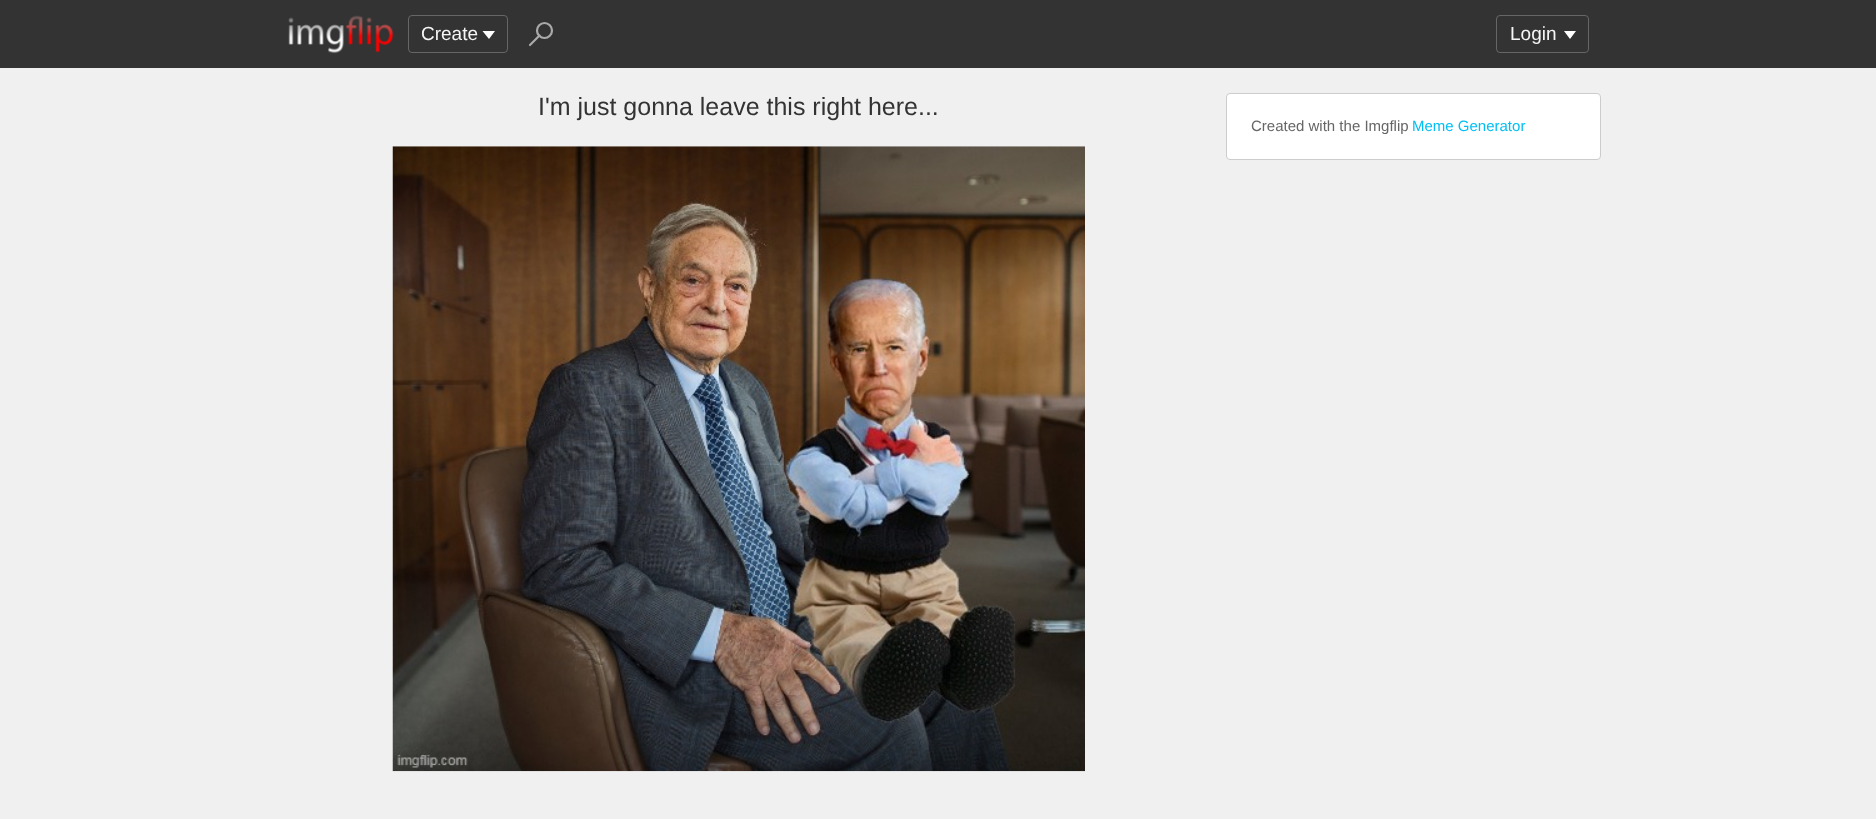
<svg xmlns="http://www.w3.org/2000/svg" width="1876" height="819" viewBox="0 0 1876 819">
  <rect width="100%" height="100%" fill="#f0f0f0"/>
  <rect x="0" y="0" width="1876" height="68" fill="#333333"/>
  <image x="288" y="15" width="106" height="39" href="img1.png"/>
  <rect x="408.5" y="15.5" width="99" height="37" rx="3.5" fill="none" stroke="#666666"/>
  <text x="421" y="40" font-family="Liberation Sans" font-size="19" fill="#f5f5f5">Create</text>
  <path d="M482.5 31H495L489 39Z" fill="#ffffff"/>
  <path d="M530 45L539.5 35.5" fill="none" stroke="#aaaaaa" stroke-width="2.2" stroke-linecap="round"/>
  <circle cx="544.5" cy="30.5" r="7.5" fill="none" stroke="#aaaaaa" stroke-width="2.2"/>
  <rect x="1496.5" y="15.5" width="92" height="37" rx="3.5" fill="none" stroke="#666666"/>
  <text x="1510" y="40" font-family="Liberation Sans" font-size="19" fill="#f5f5f5">Login</text>
  <path d="M1564 31H1576L1570 39Z" fill="#ffffff"/>
  <text x="538" y="115" font-family="Liberation Sans" font-size="25" fill="#333333">I'm just gonna leave this right here...</text>
  <image x="392" y="146" width="693" height="626" href="img2.png"/>
  <rect x="1226.5" y="93.5" width="374" height="66" rx="3.5" fill="#ffffff" stroke="#cccccc"/>
  <text x="1251" y="131" font-family="Liberation Sans" font-size="15" fill="#666666">Created with the Imgflip</text>
  <text x="1412" y="131" font-family="Liberation Sans" font-size="15" fill="#00bff3">Meme Generator</text>
</svg>
